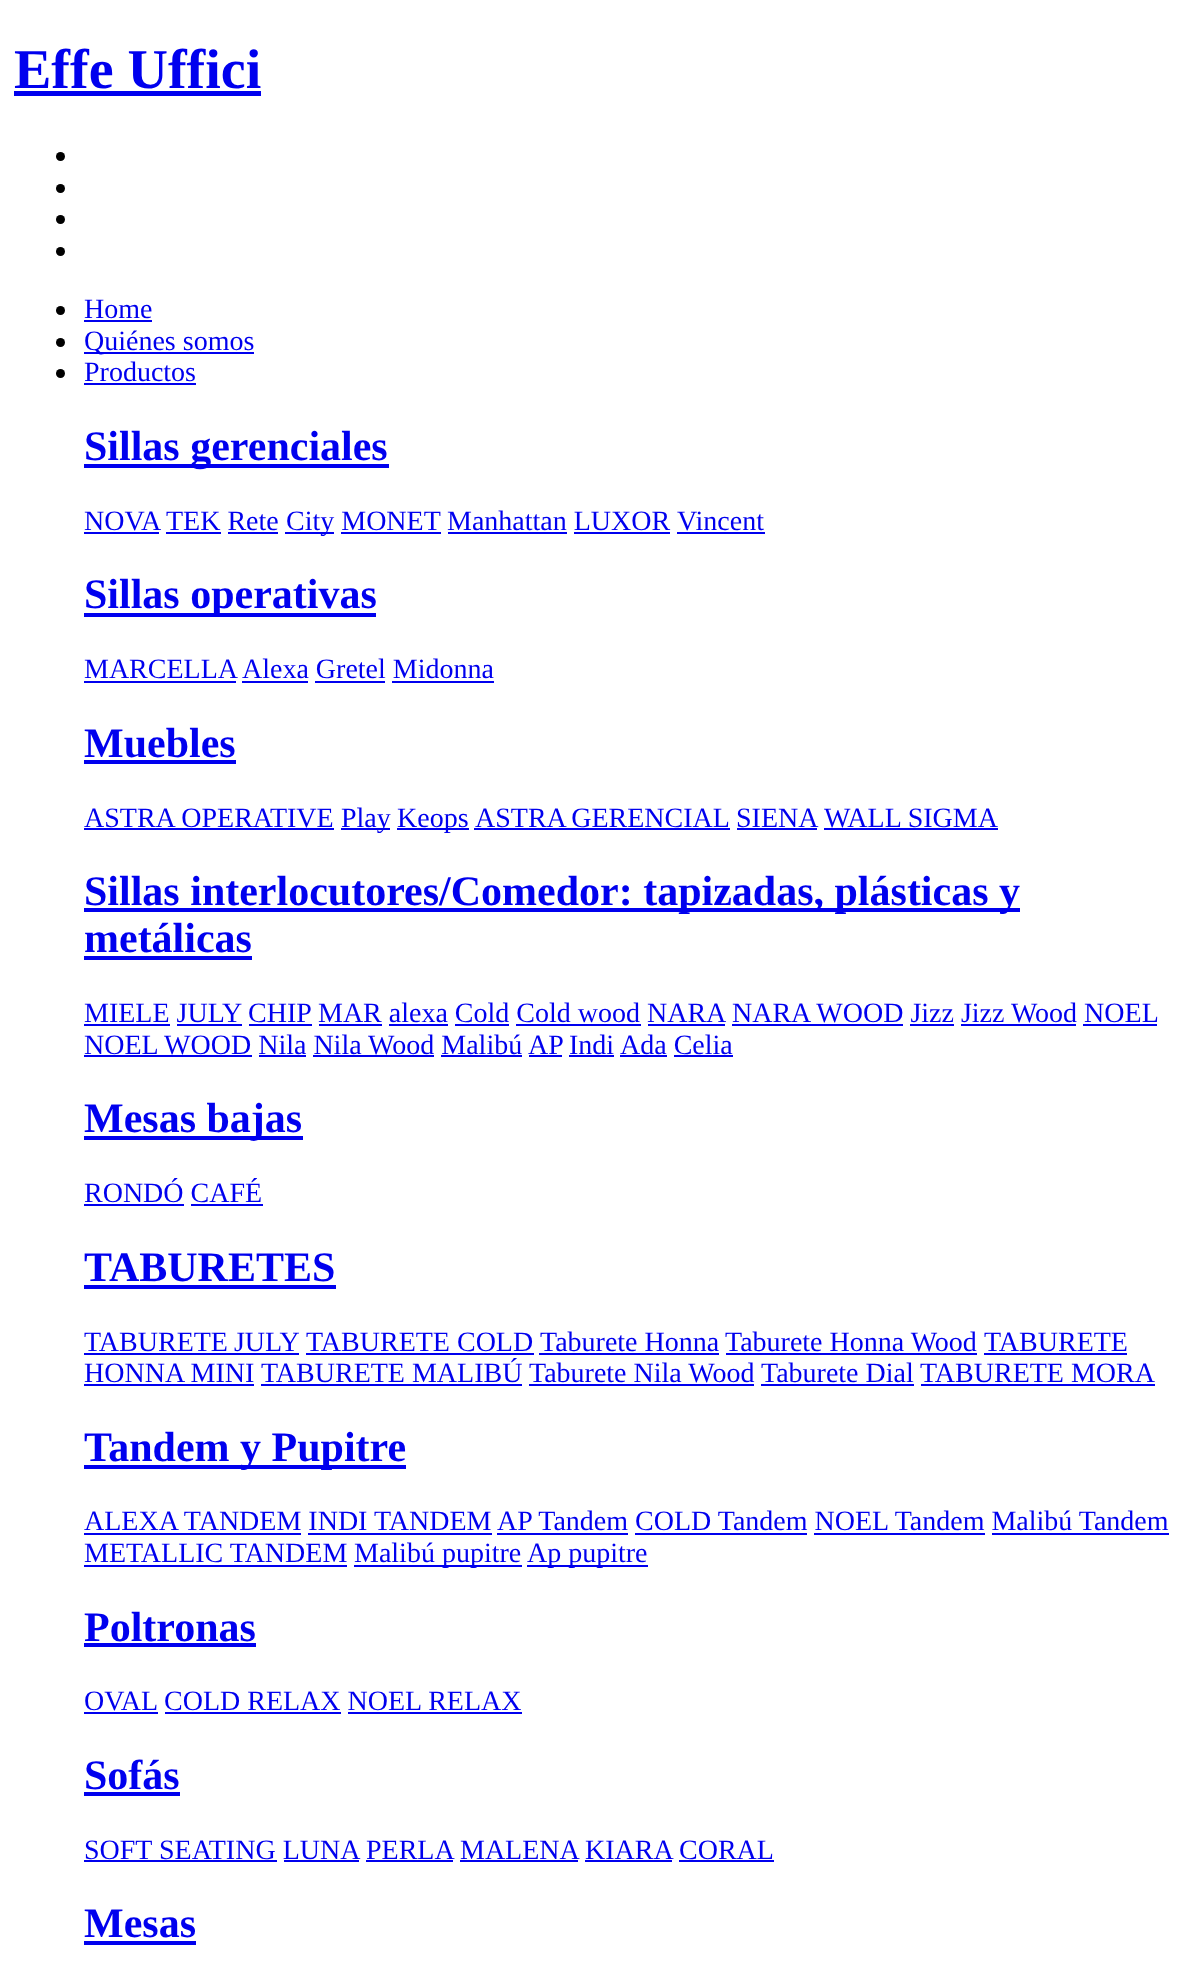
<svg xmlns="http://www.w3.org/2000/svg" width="1188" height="1978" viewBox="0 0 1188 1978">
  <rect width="100%" height="100%" fill="#ffffff"/>
  <text x="14" y="88" font-family="Liberation Serif" font-size="56" font-weight="bold" fill="#0000ee">Effe Uffici</text>
  <rect x="14" y="91" width="247" height="5" fill="#0000ee"/>
  <circle cx="60.5" cy="156.5" r="4.5" fill="#000000"/>
  <circle cx="60.5" cy="188.5" r="4.5" fill="#000000"/>
  <circle cx="60.5" cy="219.5" r="4.5" fill="#000000"/>
  <circle cx="60.5" cy="251.5" r="4.5" fill="#000000"/>
  <circle cx="60.5" cy="310.5" r="4.5" fill="#000000"/>
  <text x="84" y="318" font-family="Liberation Serif" font-size="28" fill="#0000ee">Home</text>
  <rect x="84" y="320" width="68" height="2" fill="#0000ee"/>
  <circle cx="60.5" cy="342.5" r="4.5" fill="#000000"/>
  <rect x="84" y="352" width="170" height="2" fill="#0000ee"/>
  <text x="84" y="350" font-family="Liberation Serif" font-size="28" fill="#0000ee">Quiénes somos</text>
  <circle cx="60.5" cy="373.5" r="4.5" fill="#000000"/>
  <text x="84" y="381" font-family="Liberation Serif" font-size="28" fill="#0000ee">Productos</text>
  <rect x="84" y="383" width="112" height="2" fill="#0000ee"/>
  <rect x="84" y="464" width="305" height="4" fill="#0000ee"/>
  <text x="84" y="460" font-family="Liberation Serif" font-size="42" font-weight="bold" fill="#0000ee">Sillas gerenciales</text>
  <text x="84" y="530" font-family="Liberation Serif" font-size="28" fill="#0000ee">NOVA</text>
  <rect x="84" y="532" width="75" height="2" fill="#0000ee"/>
  <text x="166" y="530" font-family="Liberation Serif" font-size="28" fill="#0000ee">TEK Rete</text>
  <rect x="166" y="532" width="55" height="2" fill="#0000ee"/>
  <rect x="285" y="532" width="49" height="2" fill="#0000ee"/>
  <text x="286" y="530" font-family="Liberation Serif" font-size="28" fill="#0000ee">City MONET</text>
  <text x="447" y="530" font-family="Liberation Serif" font-size="28" fill="#0000ee">Manhattan LUXOR</text>
  <rect x="448" y="532" width="119" height="2" fill="#0000ee"/>
  <text x="677" y="530" font-family="Liberation Serif" font-size="28" fill="#0000ee">Vincent</text>
  <rect x="677" y="532" width="88" height="2" fill="#0000ee"/>
  <rect x="228" y="532" width="50" height="2" fill="#0000ee"/>
  <rect x="341" y="532" width="100" height="2" fill="#0000ee"/>
  <rect x="574" y="532" width="96" height="2" fill="#0000ee"/>
  <rect x="84" y="613" width="292" height="4" fill="#0000ee"/>
  <text x="84" y="608" font-family="Liberation Serif" font-size="42" font-weight="bold" fill="#0000ee">Sillas operativas</text>
  <text x="84" y="678" font-family="Liberation Serif" font-size="28" fill="#0000ee">MARCELLA</text>
  <rect x="84" y="681" width="152" height="2" fill="#0000ee"/>
  <text x="242" y="678" font-family="Liberation Serif" font-size="28" fill="#0000ee">Alexa Gretel Midonna</text>
  <rect x="242" y="681" width="66" height="2" fill="#0000ee"/>
  <rect x="315" y="681" width="70" height="2" fill="#0000ee"/>
  <rect x="392" y="681" width="102" height="2" fill="#0000ee"/>
  <text x="84" y="757" font-family="Liberation Serif" font-size="42" font-weight="bold" fill="#0000ee">Muebles</text>
  <rect x="84" y="760" width="152" height="4" fill="#0000ee"/>
  <text x="84" y="827" font-family="Liberation Serif" font-size="28" fill="#0000ee">ASTRA OPERATIVE</text>
  <rect x="84" y="828" width="250" height="2" fill="#0000ee"/>
  <rect x="341" y="828" width="49" height="2" fill="#0000ee"/>
  <text x="341" y="827" font-family="Liberation Serif" font-size="28" fill="#0000ee">Play</text>
  <rect x="397" y="828" width="72" height="2" fill="#0000ee"/>
  <text x="397" y="827" font-family="Liberation Serif" font-size="28" fill="#0000ee">Keops</text>
  <text x="475" y="827" word-spacing="-1" font-family="Liberation Serif" font-size="28" fill="#0000ee">ASTRA GERENCIAL</text>
  <rect x="474" y="828" width="256" height="2" fill="#0000ee"/>
  <text x="736" y="827" font-family="Liberation Serif" font-size="28" fill="#0000ee">SIENA</text>
  <rect x="737" y="828" width="80" height="2" fill="#0000ee"/>
  <text x="824" y="827" font-family="Liberation Serif" font-size="28" fill="#0000ee">WALL SIGMA</text>
  <rect x="824" y="828" width="174" height="2" fill="#0000ee"/>
  <rect x="84" y="908" width="936" height="4" fill="#0000ee"/>
  <text x="84" y="905" font-family="Liberation Serif" font-size="42" font-weight="bold" fill="#0000ee">Sillas interlocutores/Comedor: tapizadas, plásticas y</text>
  <text x="84" y="952" font-family="Liberation Serif" font-size="42" font-weight="bold" fill="#0000ee">metálicas</text>
  <rect x="84" y="956" width="168" height="4" fill="#0000ee"/>
  <text x="84" y="1022" font-family="Liberation Serif" font-size="28" fill="#0000ee">MIELE JULY</text>
  <rect x="84" y="1024" width="86" height="2" fill="#0000ee"/>
  <text x="248" y="1022" font-family="Liberation Serif" font-size="28" fill="#0000ee">CHIP</text>
  <rect x="249" y="1024" width="63" height="2" fill="#0000ee"/>
  <text x="318" y="1022" font-family="Liberation Serif" font-size="28" fill="#0000ee">MAR alexa Cold Cold wood NARA</text>
  <rect x="319" y="1024" width="63" height="2" fill="#0000ee"/>
  <text x="732" y="1022" font-family="Liberation Serif" font-size="28" fill="#0000ee">NARA WOOD Jizz Jizz Wood NOEL</text>
  <rect x="732" y="1024" width="171" height="2" fill="#0000ee"/>
  <rect x="177" y="1024" width="65" height="2" fill="#0000ee"/>
  <rect x="389" y="1024" width="59" height="2" fill="#0000ee"/>
  <rect x="455" y="1024" width="54" height="2" fill="#0000ee"/>
  <rect x="516" y="1024" width="125" height="2" fill="#0000ee"/>
  <rect x="648" y="1024" width="77" height="2" fill="#0000ee"/>
  <rect x="910" y="1024" width="44" height="2" fill="#0000ee"/>
  <rect x="961" y="1024" width="115" height="2" fill="#0000ee"/>
  <rect x="1083" y="1024" width="74" height="2" fill="#0000ee"/>
  <text x="84" y="1054" font-family="Liberation Serif" font-size="28" fill="#0000ee">NOEL WOOD Nila Nila Wood Malibú</text>
  <rect x="84" y="1055" width="168" height="2" fill="#0000ee"/>
  <text x="528" y="1054" font-family="Liberation Serif" font-size="28" fill="#0000ee">AP</text>
  <rect x="529" y="1055" width="33" height="2" fill="#0000ee"/>
  <text x="569" y="1054" font-family="Liberation Serif" font-size="28" fill="#0000ee">Indi</text>
  <rect x="569" y="1055" width="45" height="2" fill="#0000ee"/>
  <text x="620" y="1054" font-family="Liberation Serif" font-size="28" fill="#0000ee">Ada Celia</text>
  <rect x="620" y="1055" width="47" height="2" fill="#0000ee"/>
  <rect x="259" y="1055" width="47" height="2" fill="#0000ee"/>
  <rect x="313" y="1055" width="121" height="2" fill="#0000ee"/>
  <rect x="441" y="1055" width="81" height="2" fill="#0000ee"/>
  <rect x="674" y="1055" width="59" height="2" fill="#0000ee"/>
  <rect x="84" y="1136" width="219" height="4" fill="#0000ee"/>
  <text x="84" y="1132" font-family="Liberation Serif" font-size="42" font-weight="bold" fill="#0000ee">Mesas bajas</text>
  <text x="84" y="1202" font-family="Liberation Serif" font-size="28" fill="#0000ee">RONDÓ CAFÉ</text>
  <rect x="84" y="1204" width="100" height="2" fill="#0000ee"/>
  <rect x="191" y="1204" width="72" height="2" fill="#0000ee"/>
  <text x="84" y="1281" font-family="Liberation Serif" font-size="42" font-weight="bold" fill="#0000ee">TABURETES</text>
  <rect x="84" y="1285" width="252" height="4" fill="#0000ee"/>
  <text x="84" y="1351" word-spacing="-1" font-family="Liberation Serif" font-size="28" fill="#0000ee">TABURETE JULY</text>
  <rect x="84" y="1353" width="215" height="2" fill="#0000ee"/>
  <text x="306" y="1351" font-family="Liberation Serif" font-size="28" fill="#0000ee">TABURETE COLD</text>
  <rect x="306" y="1353" width="228" height="2" fill="#0000ee"/>
  <text x="540" y="1351" font-family="Liberation Serif" font-size="28" fill="#0000ee">Taburete Honna</text>
  <rect x="539" y="1353" width="180" height="2" fill="#0000ee"/>
  <text x="725" y="1351" font-family="Liberation Serif" font-size="28" fill="#0000ee">Taburete Honna Wood</text>
  <rect x="726" y="1353" width="251" height="2" fill="#0000ee"/>
  <text x="984" y="1351" font-family="Liberation Serif" font-size="28" fill="#0000ee">TABURETE</text>
  <rect x="984" y="1353" width="143" height="2" fill="#0000ee"/>
  <text x="84" y="1382" font-family="Liberation Serif" font-size="28" fill="#0000ee">HONNA MINI</text>
  <rect x="84" y="1384" width="170" height="2" fill="#0000ee"/>
  <text x="261" y="1382" font-family="Liberation Serif" font-size="28" fill="#0000ee">TABURETE MALIBÚ</text>
  <rect x="261" y="1384" width="261" height="2" fill="#0000ee"/>
  <text x="529" y="1382" font-family="Liberation Serif" font-size="28" fill="#0000ee">Taburete Nila Wood</text>
  <rect x="529" y="1384" width="225" height="2" fill="#0000ee"/>
  <text x="761" y="1382" font-family="Liberation Serif" font-size="28" fill="#0000ee">Taburete Dial</text>
  <rect x="761" y="1384" width="153" height="2" fill="#0000ee"/>
  <text x="920" y="1382" font-family="Liberation Serif" font-size="28" fill="#0000ee">TABURETE MORA</text>
  <rect x="921" y="1384" width="234" height="2" fill="#0000ee"/>
  <rect x="84" y="1465" width="322" height="4" fill="#0000ee"/>
  <text x="84" y="1461" font-family="Liberation Serif" font-size="42" font-weight="bold" fill="#0000ee">Tandem y Pupitre</text>
  <text x="84" y="1530" font-family="Liberation Serif" font-size="28" fill="#0000ee">ALEXA TANDEM INDI TANDEM</text>
  <rect x="84" y="1533" width="217" height="2" fill="#0000ee"/>
  <text x="497" y="1530" font-family="Liberation Serif" font-size="28" fill="#0000ee">AP Tandem COLD Tandem NOEL Tandem Malibú Tandem</text>
  <rect x="497" y="1533" width="131" height="2" fill="#0000ee"/>
  <rect x="308" y="1533" width="184" height="2" fill="#0000ee"/>
  <rect x="635" y="1533" width="172" height="2" fill="#0000ee"/>
  <rect x="814" y="1533" width="171" height="2" fill="#0000ee"/>
  <rect x="992" y="1533" width="177" height="2" fill="#0000ee"/>
  <text x="84" y="1562" font-family="Liberation Serif" font-size="28" fill="#0000ee">METALLIC TANDEM</text>
  <rect x="84" y="1565" width="263" height="2" fill="#0000ee"/>
  <rect x="354" y="1565" width="168" height="2" fill="#0000ee"/>
  <text x="354" y="1562" font-family="Liberation Serif" font-size="28" fill="#0000ee">Malibú pupitre</text>
  <rect x="527" y="1565" width="121" height="2" fill="#0000ee"/>
  <text x="527" y="1562" font-family="Liberation Serif" font-size="28" fill="#0000ee">Ap pupitre</text>
  <text x="84" y="1641" font-family="Liberation Serif" font-size="42" font-weight="bold" fill="#0000ee">Poltronas</text>
  <rect x="84" y="1643" width="172" height="4" fill="#0000ee"/>
  <text x="84" y="1710" font-family="Liberation Serif" font-size="28" fill="#0000ee">OVAL</text>
  <rect x="84" y="1712" width="74" height="2" fill="#0000ee"/>
  <text x="164" y="1710" font-family="Liberation Serif" font-size="28" fill="#0000ee">COLD RELAX NOEL RELAX</text>
  <rect x="165" y="1712" width="176" height="2" fill="#0000ee"/>
  <rect x="348" y="1712" width="174" height="2" fill="#0000ee"/>
  <text x="84" y="1789" font-family="Liberation Serif" font-size="42" font-weight="bold" fill="#0000ee">Sofás</text>
  <rect x="84" y="1792" width="96" height="4" fill="#0000ee"/>
  <text x="84" y="1859" font-family="Liberation Serif" font-size="28" fill="#0000ee">SOFT SEATING LUNA</text>
  <rect x="84" y="1860" width="193" height="2" fill="#0000ee"/>
  <text x="366" y="1859" font-family="Liberation Serif" font-size="28" fill="#0000ee">PERLA</text>
  <rect x="366" y="1860" width="87" height="2" fill="#0000ee"/>
  <text x="460" y="1859" font-family="Liberation Serif" font-size="28" fill="#0000ee">MALENA</text>
  <rect x="460" y="1860" width="118" height="2" fill="#0000ee"/>
  <text x="585" y="1859" font-family="Liberation Serif" font-size="28" fill="#0000ee">KIARA</text>
  <rect x="585" y="1860" width="87" height="2" fill="#0000ee"/>
  <text x="679" y="1859" font-family="Liberation Serif" font-size="28" fill="#0000ee">CORAL</text>
  <rect x="679" y="1860" width="95" height="2" fill="#0000ee"/>
  <rect x="284" y="1860" width="75" height="2" fill="#0000ee"/>
  <text x="84" y="1937" font-family="Liberation Serif" font-size="42" font-weight="bold" fill="#0000ee">Mesas</text>
  <rect x="84" y="1941" width="112" height="4" fill="#0000ee"/>
</svg>
